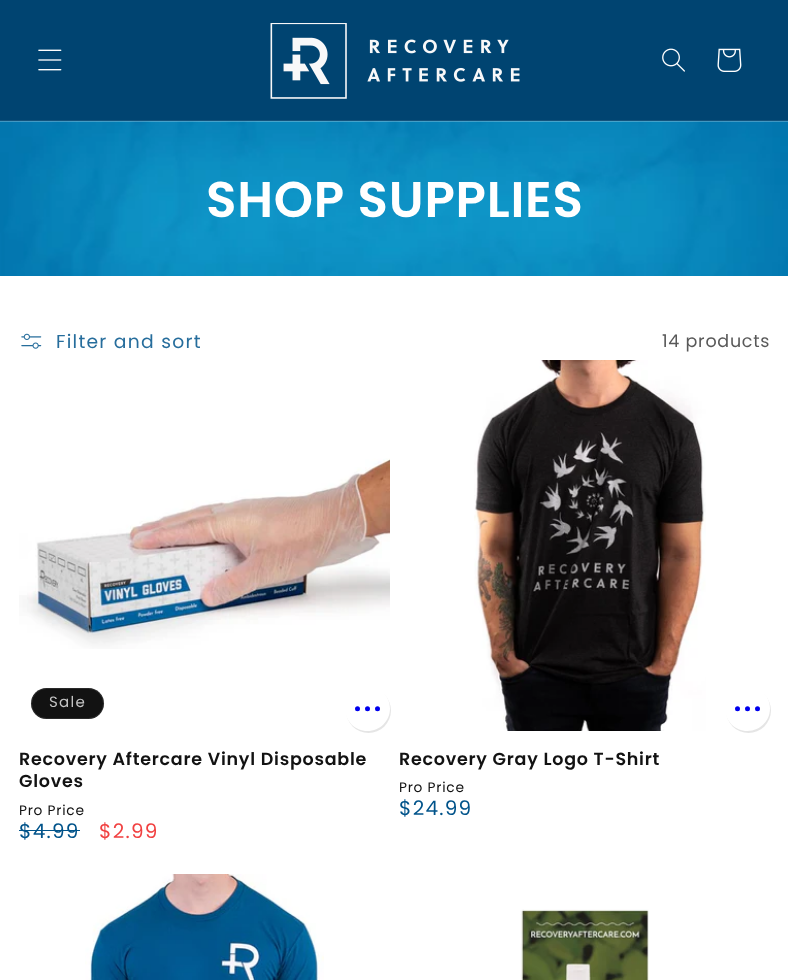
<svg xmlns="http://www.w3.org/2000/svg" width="788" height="980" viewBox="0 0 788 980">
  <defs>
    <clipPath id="clip1"><path d="M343 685H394V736H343ZM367.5 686C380 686 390 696 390 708.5C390 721 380 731 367.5 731C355 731 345 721 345 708.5C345 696 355 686 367.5 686Z" clip-rule="evenodd"/></clipPath>
    <filter id="blur1" x="-50%" y="-200%" width="200%" height="500%"><feGaussianBlur stdDeviation="0.5"/></filter>
    <clipPath id="clip2"><path d="M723 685H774V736H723ZM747.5 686C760 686 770 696 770 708.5C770 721 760 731 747.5 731C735 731 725 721 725 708.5C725 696 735 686 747.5 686Z" clip-rule="evenodd"/></clipPath>
  </defs>
  <rect width="100%" height="100%" fill="#ffffff"/>
  <rect x="0" y="0" width="788" height="120" fill="#004471"/>
  <rect x="0" y="120" width="788" height="1" fill="#14537c"/>
  <image x="38" y="49" width="24" height="22" href="img1.png"/>
  <image x="270" y="23" width="250" height="76" href="img2.png"/>
  <image x="662" y="48" width="23" height="24" href="img3.png"/>
  <image x="717" y="48" width="25" height="24" href="img4.png"/>
  <image x="0" y="121" width="788" height="155" href="img5.png"/>
  <text x="206" y="217" font-family="Poppins" font-size="50" font-weight="600" letter-spacing="0.75" fill="#ffffff">SHOP SUPPLIES</text>
  <image x="21" y="333" width="21" height="16" href="img6.png"/>
  <text x="56" y="348" font-family="Poppins" font-size="18.75" letter-spacing="1.25" fill="#266d9c">Filter and sort</text>
  <text x="662" y="347" font-family="Poppins" font-size="17.5" letter-spacing="0.75" fill="#595959">14 products</text>
  <image x="19" y="458" width="371" height="191" href="img7.png"/>
  <rect x="31" y="688" width="73" height="31" rx="15.5" fill="#121212"/>
  <rect x="31.5" y="688.5" width="72" height="30" rx="15" fill="none" stroke="#ffffff" stroke-opacity="0.1"/>
  <text x="49" y="707" font-family="Poppins" font-size="15" letter-spacing="1.25" fill="#c4c4c4">Sale</text>
  <g clip-path="url(#clip1)">
    <rect x="346" y="688" width="45" height="45" rx="22.5" fill="#000000" fill-opacity="0.1" filter="url(#blur1)"/>
  </g>
  <circle cx="367.5" cy="708.8" r="2.5" fill="#0000ee"/>
  <circle cx="357.5" cy="708.8" r="2.5" fill="#0000ee"/>
  <circle cx="377.5" cy="708.8" r="2.5" fill="#0000ee"/>
  <text x="19" y="765" font-family="Poppins" font-size="17.5" font-weight="600" letter-spacing="0.75" fill="#121212">Recovery Aftercare Vinyl Disposable</text>
  <text x="19" y="787" font-family="Poppins" font-size="17.5" font-weight="600" letter-spacing="0.75" fill="#121212">Gloves</text>
  <text x="19" y="815" font-family="Poppins" font-size="13.75" letter-spacing="0.75" fill="#121212">Pro Price</text>
  <text x="19" y="838" font-family="Poppins" font-size="20" letter-spacing="1.25" fill="#00538a">$4.99</text>
  <rect x="19" y="830" width="61" height="1" fill="#00538a"/>
  <text x="99" y="838" font-family="Poppins" font-size="20" letter-spacing="1.25" fill="#f14141">$2.99</text>
  <image x="474" y="360" width="232" height="371" href="img8.png"/>
  <g clip-path="url(#clip2)">
    <rect x="726" y="688" width="45" height="45" rx="22.5" fill="#000000" fill-opacity="0.1" filter="url(#blur1)"/>
  </g>
  <circle cx="747.5" cy="708.8" r="2.5" fill="#0000ee"/>
  <circle cx="737.5" cy="708.8" r="2.5" fill="#0000ee"/>
  <circle cx="757.5" cy="708.8" r="2.5" fill="#0000ee"/>
  <text x="399" y="765" font-family="Poppins" font-size="17.5" font-weight="600" letter-spacing="0.75" fill="#121212">Recovery Gray Logo T-Shirt</text>
  <text x="399" y="792" font-family="Poppins" font-size="13.75" letter-spacing="0.75" fill="#121212">Pro Price</text>
  <text x="399" y="815" font-family="Poppins" font-size="20" letter-spacing="1.25" fill="#00538a">$24.99</text>
  <image x="85" y="874" width="239" height="106" href="img9.png"/>
  <image x="520" y="909" width="129" height="71" href="img10.png"/>
</svg>
